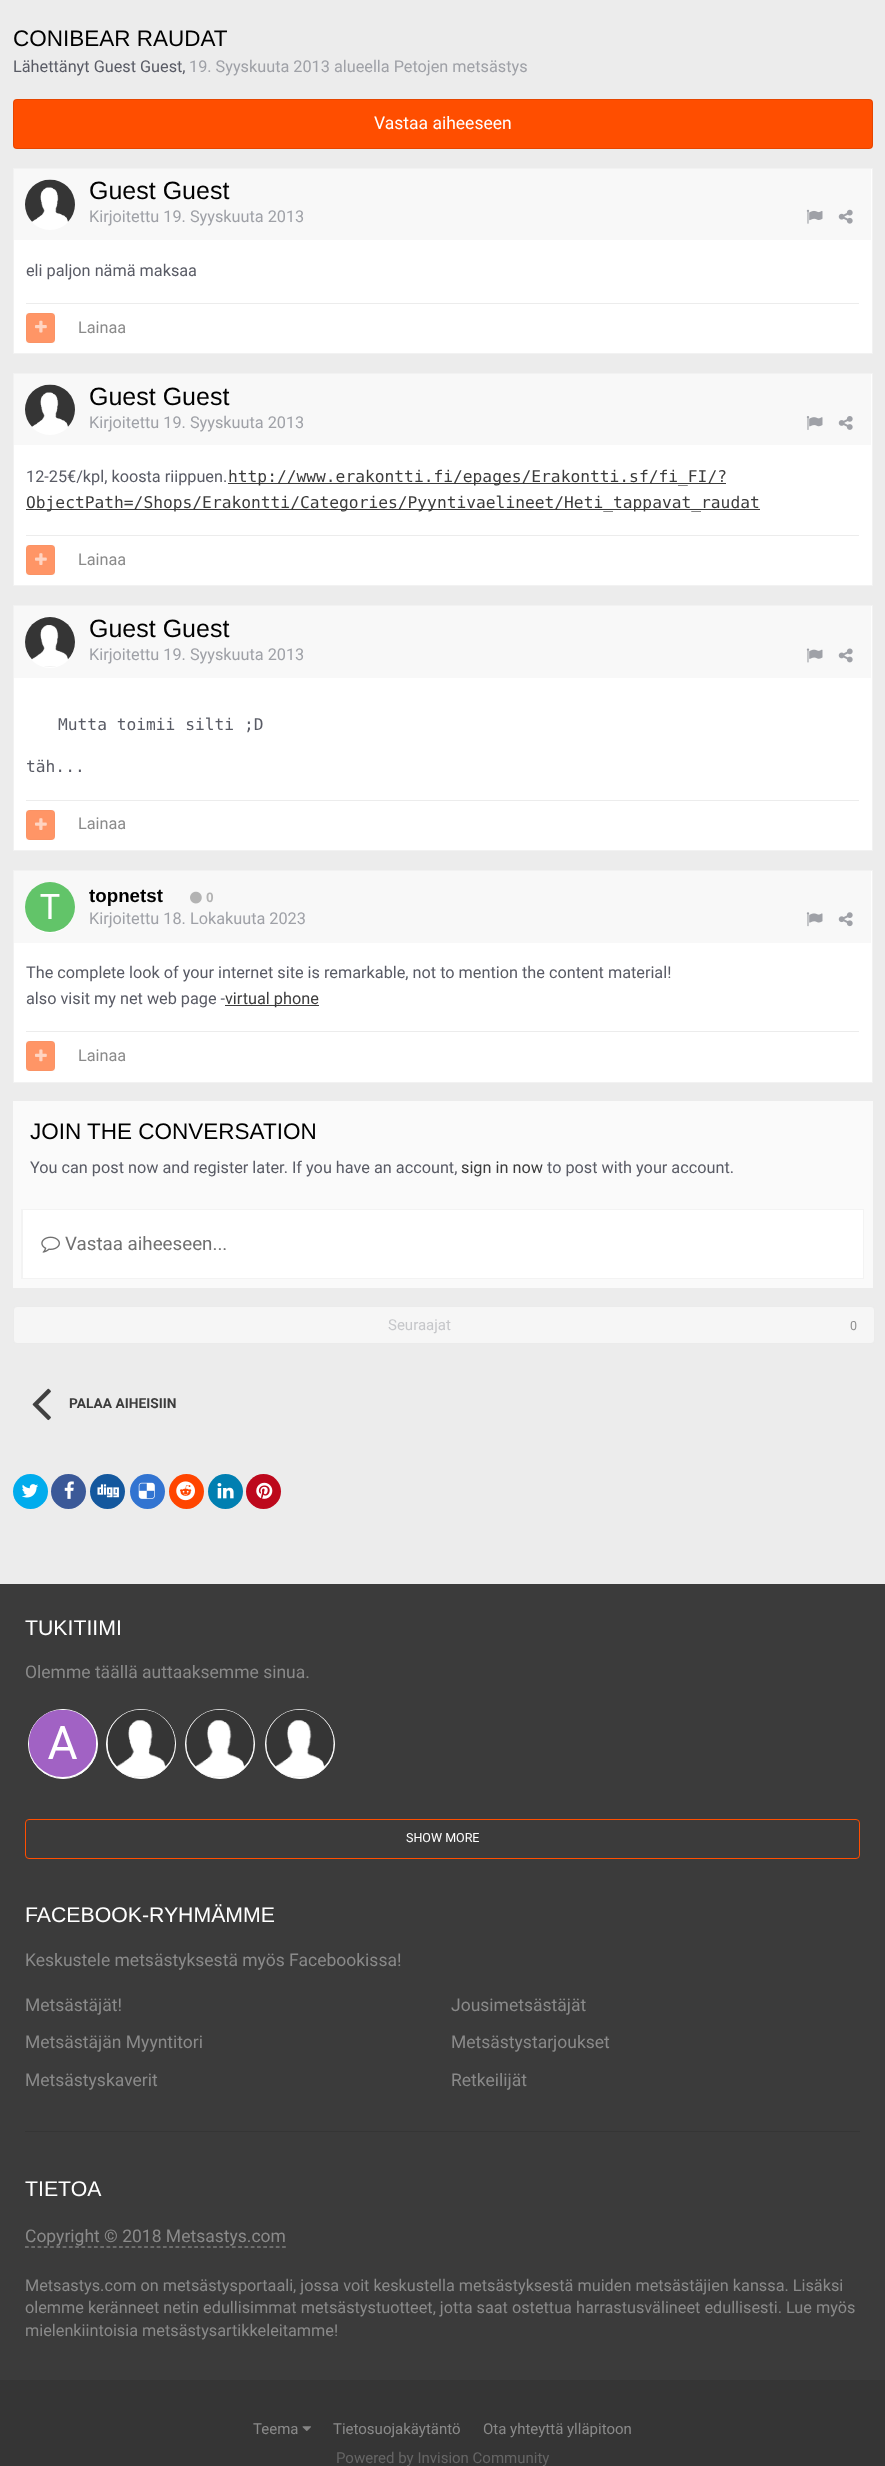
<svg xmlns="http://www.w3.org/2000/svg" width="885" height="2466" viewBox="0 0 885 2466">
  <rect width="100%" height="100%" fill="#ececec"/>
  <text x="13" y="46" font-family="Liberation Sans" font-size="22.5" fill="#000000">CONIBEAR RAUDAT</text>
  <text x="13" y="72" font-family="Roboto" font-size="16.25" fill="#595b65">Lähettänyt Guest Guest,</text>
  <text x="189" y="72" font-family="Roboto" font-size="16.25" fill="#9fa1a7">19. Syyskuuta 2013 alueella Petojen metsästys</text>
  <rect x="13" y="99" width="860" height="50" rx="4" fill="#ff4e00"/>
  <rect x="13.5" y="99.5" width="859" height="49" rx="3.5" fill="none" stroke="#000000" stroke-opacity="0.1"/>
  <text x="374" y="129" font-family="Roboto" font-size="17.5" fill="#ffffff">Vastaa aiheeseen</text>
  <rect x="13.5" y="168.5" width="859" height="185" fill="#ffffff" stroke="#f2f2f2"/>
  <rect x="14" y="169" width="857" height="71" fill="#f8f8f8"/>
  <circle cx="50" cy="205" r="25" fill="#ffffff"/>
  <image x="25" y="179" width="50" height="43" href="img1.png"/>
  <text x="89" y="199" font-family="Liberation Sans" font-size="25" fill="#000000">Guest Guest</text>
  <text x="89" y="222" font-family="Roboto" font-size="16.25" fill="#9fa1a7">Kirjoitettu 19. Syyskuuta 2013</text>
  <image x="806" y="209" width="17" height="15" href="img2.png"/>
  <image x="838" y="209" width="15" height="15" href="img3.png"/>
  <text x="26" y="276" font-family="Roboto" font-size="16.25" fill="#595b65">eli paljon nämä maksaa</text>
  <rect x="26" y="303" width="833" height="1" fill="#ececec"/>
  <rect x="26" y="313" width="29" height="30" rx="4" fill="#ff9566"/>
  <rect x="26.5" y="313.5" width="28" height="29" fill="none" stroke="#666666" stroke-opacity="0.03"/>
  <image x="35" y="320" width="12" height="13" href="img4.png"/>
  <text x="78" y="333" font-family="Roboto" font-size="16.25" fill="#8a8a8a">Lainaa</text>
  <rect x="13.5" y="373.5" width="859" height="212" fill="#ffffff" stroke="#f2f2f2"/>
  <rect x="14" y="374" width="857" height="71" fill="#f8f8f8"/>
  <circle cx="50" cy="410" r="25" fill="#ffffff"/>
  <image x="25" y="384" width="50" height="43" href="img1.png"/>
  <text x="89" y="405" font-family="Liberation Sans" font-size="25" fill="#000000">Guest Guest</text>
  <text x="89" y="428" font-family="Roboto" font-size="16.25" fill="#9fa1a7">Kirjoitettu 19. Syyskuuta 2013</text>
  <image x="806" y="416" width="17" height="14" href="img5.png"/>
  <image x="838" y="416" width="15" height="14" href="img6.png"/>
  <text x="26" y="482" font-family="Roboto" font-size="16.25" fill="#595b65">12-25€/kpl, koosta riippuen.</text>
  <rect x="228" y="483" width="498" height="1" fill="#3c3c3c"/>
  <text x="228" y="482" font-family="DejaVu Sans Mono" font-size="16.25" fill="#3c3c3c">http://www.erakontti.fi/epages/Erakontti.sf/fi_FI/?</text>
  <rect x="26" y="509" width="734" height="1" fill="#3c3c3c"/>
  <text x="26" y="508" font-family="DejaVu Sans Mono" font-size="16.25" fill="#3c3c3c">ObjectPath=/Shops/Erakontti/Categories/Pyyntivaelineet/Heti_tappavat_raudat</text>
  <rect x="26" y="535" width="833" height="1" fill="#ececec"/>
  <rect x="26" y="545" width="29" height="30" rx="4" fill="#ff9566"/>
  <rect x="26.5" y="545.5" width="28" height="29" fill="none" stroke="#666666" stroke-opacity="0.03"/>
  <image x="35" y="553" width="12" height="12" href="img7.png"/>
  <text x="78" y="565" font-family="Roboto" font-size="16.25" fill="#8a8a8a">Lainaa</text>
  <rect x="13.5" y="605.5" width="859" height="245" fill="#ffffff" stroke="#f2f2f2"/>
  <rect x="14" y="606" width="857" height="72" fill="#f8f8f8"/>
  <circle cx="50" cy="643" r="25" fill="#ffffff"/>
  <image x="25" y="617" width="50" height="50" href="img8.png"/>
  <text x="89" y="637" font-family="Liberation Sans" font-size="25" fill="#000000">Guest Guest</text>
  <text x="89" y="660" font-family="Roboto" font-size="16.25" fill="#9fa1a7">Kirjoitettu 19. Syyskuuta 2013</text>
  <image x="806" y="648" width="17" height="15" href="img9.png"/>
  <image x="838" y="648" width="15" height="15" href="img10.png"/>
  <text x="58" y="730" font-family="DejaVu Sans Mono" font-size="16.25" fill="#595b65">Mutta toimii silti ;D</text>
  <text x="26" y="772" font-family="DejaVu Sans Mono" font-size="16.25" fill="#595b65">täh...</text>
  <rect x="26" y="800" width="833" height="1" fill="#ececec"/>
  <rect x="26" y="810" width="29" height="30" rx="4" fill="#ff9566"/>
  <rect x="26.5" y="810.5" width="28" height="29" fill="none" stroke="#666666" stroke-opacity="0.03"/>
  <image x="35" y="818" width="12" height="12" href="img7.png"/>
  <text x="78" y="829" font-family="Roboto" font-size="16.25" fill="#8a8a8a">Lainaa</text>
  <rect x="13.5" y="870.5" width="859" height="212" fill="#ffffff" stroke="#f2f2f2"/>
  <rect x="14" y="871" width="857" height="72" fill="#f8f8f8"/>
  <circle cx="50" cy="908" r="25" fill="#ffffff"/>
  <image x="25" y="882" width="50" height="50" href="img11.png"/>
  <text x="89" y="902" font-family="Liberation Sans" font-size="18.75" font-weight="bold" fill="#000000">topnetst</text>
  <image x="190" y="891" width="12" height="13" href="img12.png"/>
  <text x="206" y="902" font-family="Liberation Sans" font-size="13.75" font-weight="bold" fill="#b3b3b3">0</text>
  <text x="89" y="924" font-family="Roboto" font-size="16.25" fill="#9fa1a7">Kirjoitettu 18. Lokakuuta 2023</text>
  <image x="806" y="912" width="17" height="15" href="img13.png"/>
  <image x="838" y="912" width="15" height="15" href="img14.png"/>
  <text x="26" y="978" font-family="Roboto" font-size="16.25" fill="#595b65">The complete look of your internet site is remarkable, not to mention the content material!</text>
  <text x="26" y="1004" font-family="Roboto" font-size="16.25" fill="#595b65">also visit my net web page -</text>
  <rect x="225" y="1005" width="94" height="1" fill="#3c3c3c"/>
  <text x="225" y="1004" font-family="Roboto" font-size="16.25" fill="#3c3c3c">virtual phone</text>
  <rect x="26" y="1031" width="833" height="1" fill="#ececec"/>
  <rect x="26" y="1041" width="29" height="30" rx="4" fill="#ff9566"/>
  <rect x="26.5" y="1041.5" width="28" height="29" fill="none" stroke="#666666" stroke-opacity="0.03"/>
  <image x="35" y="1049" width="12" height="13" href="img15.png"/>
  <text x="78" y="1061" font-family="Roboto" font-size="16.25" fill="#8a8a8a">Lainaa</text>
  <rect x="13" y="1101" width="860" height="187" fill="#fafafa"/>
  <text x="30" y="1139" font-family="Liberation Sans" font-size="22.5" fill="#000000">JOIN THE CONVERSATION</text>
  <text x="30" y="1173" font-family="Roboto" font-size="16.25" fill="#595b65">You can post now and register later. If you have an account,</text>
  <text x="461" y="1173" font-family="Roboto" font-size="16.25" fill="#3c3c3c">sign in now</text>
  <text x="547" y="1173" font-family="Roboto" font-size="16.25" fill="#595b65">to post with your account.</text>
  <rect x="21" y="1209" width="843" height="70" fill="#f3f3f3"/>
  <rect x="23" y="1210" width="840" height="68" fill="#ffffff"/>
  <image x="41" y="1236" width="19" height="17" href="img16.png"/>
  <text x="65" y="1250" font-family="Roboto" font-size="18.75" fill="#707070">Vastaa aiheeseen...</text>
  <rect x="13.5" y="1306.5" width="861" height="37" rx="3.5" fill="#f6f6f6" stroke="#ebebeb"/>
  <text x="388" y="1330" font-family="Roboto" font-size="15" fill="#c6c7ca">Seuraajat</text>
  <text x="850" y="1330" font-family="Roboto" font-size="12.5" fill="#909090">0</text>
  <image x="32" y="1388" width="19" height="33" href="img17.png"/>
  <text x="69" y="1408" font-family="Roboto" font-size="13.75" font-weight="bold" fill="#3c3c3c">PALAA AIHEISIIN</text>
  <circle cx="30.5" cy="1491.5" r="17.5" fill="#00aced"/>
  <image x="22" y="1484" width="16" height="14" href="img18.png"/>
  <circle cx="68.5" cy="1491.5" r="17.5" fill="#3b5998"/>
  <image x="64" y="1481" width="10" height="18" href="img19.png"/>
  <circle cx="107.5" cy="1491.5" r="17.5" fill="#14589e"/>
  <image x="97" y="1484" width="22" height="14" href="img20.png"/>
  <circle cx="147.5" cy="1491.5" r="17.5" fill="#3274d1"/>
  <image x="138" y="1482" width="17" height="17" href="img21.png"/>
  <circle cx="186.5" cy="1491.5" r="17.5" fill="#ff4500"/>
  <image x="176" y="1481" width="19" height="20" href="img22.png"/>
  <circle cx="225.5" cy="1491.5" r="17.5" fill="#007fb1"/>
  <image x="217" y="1483" width="17" height="16" href="img23.png"/>
  <circle cx="263.5" cy="1491.5" r="17.5" fill="#bd081c"/>
  <image x="256" y="1482" width="17" height="17" href="img24.png"/>
  <rect x="0" y="1584" width="885" height="796" fill="#3b3b3b"/>
  <text x="25" y="1635" font-family="Liberation Sans" font-size="21.25" fill="#ffffff">TUKITIIMI</text>
  <text x="25" y="1678" font-family="Roboto" font-size="17.5" fill="#8a8a8a">Olemme täällä auttaaksemme sinua.</text>
  <circle cx="63" cy="1744" r="34.5" fill="#ffffff" stroke="#ffffff"/>
  <image x="29" y="1710" width="67" height="67" href="img25.png"/>
  <circle cx="141" cy="1744" r="34.5" fill="#ffffff" stroke="#ffffff"/>
  <image x="107" y="1709" width="68" height="68" href="img26.png"/>
  <circle cx="220" cy="1744" r="34.5" fill="#ffffff" stroke="#ffffff"/>
  <image x="186" y="1709" width="68" height="68" href="img27.png"/>
  <circle cx="300" cy="1744" r="34.5" fill="#ffffff" stroke="#ffffff"/>
  <image x="266" y="1709" width="68" height="68" href="img28.png"/>
  <rect x="25.5" y="1819.5" width="834" height="39" rx="3.5" fill="none" stroke="#ff4e00"/>
  <text x="406" y="1842" font-family="Roboto" font-size="12.5" fill="#ffffff">SHOW MORE</text>
  <text x="25" y="1922" font-family="Liberation Sans" font-size="21.25" fill="#ffffff">FACEBOOK-RYHMÄMME</text>
  <text x="25" y="1966" font-family="Roboto" font-size="17.5" fill="#8a8a8a">Keskustele metsästyksestä myös Facebookissa!</text>
  <rect x="25" y="2131" width="835" height="1" fill="#353535"/>
  <text x="25" y="2011" font-family="Roboto" font-size="17.5" fill="#8a8a8a">Metsästäjät!</text>
  <text x="451" y="2011" font-family="Roboto" font-size="17.5" fill="#8a8a8a">Jousimetsästäjät</text>
  <text x="25" y="2048" font-family="Roboto" font-size="17.5" fill="#8a8a8a">Metsästäjän Myyntitori</text>
  <text x="451" y="2048" font-family="Roboto" font-size="17.5" fill="#8a8a8a">Metsästystarjoukset</text>
  <text x="25" y="2086" font-family="Roboto" font-size="17.5" fill="#8a8a8a">Metsästyskaverit</text>
  <text x="451" y="2086" font-family="Roboto" font-size="17.5" fill="#8a8a8a">Retkeilijät</text>
  <text x="25" y="2196" font-family="Liberation Sans" font-size="21.25" fill="#ffffff">TIETOA</text>
  <text x="25" y="2242" font-family="Roboto" font-size="17.5" fill="#8a8a8a">Copyright © 2018 Metsastys.com</text>
  <path d="M25 2247H286" fill="none" stroke="#9d9d9d" stroke-width="1.2" stroke-dasharray="3.75 2.52"/>
  <text x="25" y="2291" font-family="Roboto" font-size="16.25" fill="#8a8a8a">Metsastys.com on metsästysportaali, jossa voit keskustella metsästyksestä muiden metsästäjien kanssa. Lisäksi</text>
  <text x="25" y="2313" font-family="Roboto" font-size="16.25" fill="#8a8a8a">olemme keränneet netin edullisimmat metsästystuotteet, jotta saat ostettua harrastusvälineet edullisesti. Lue myös</text>
  <text x="25" y="2336" font-family="Roboto" font-size="16.25" fill="#8a8a8a">mielenkiintoisia metsästysartikkeleitamme!</text>
  <rect x="0" y="2380" width="885" height="86" fill="#353535"/>
  <text x="253" y="2434" font-family="Roboto" font-size="15" fill="#8a8a8a">Teema</text>
  <image x="302" y="2426" width="9" height="5" href="img29.png"/>
  <text x="333" y="2434" font-family="Roboto" font-size="15" fill="#8a8a8a">Tietosuojakäytäntö</text>
  <text x="483" y="2434" font-family="Roboto" font-size="15" fill="#8a8a8a">Ota yhteyttä ylläpitoon</text>
  <text x="336" y="2463" font-family="Roboto" font-size="15" fill="#656565">Powered by Invision Community</text>
</svg>
